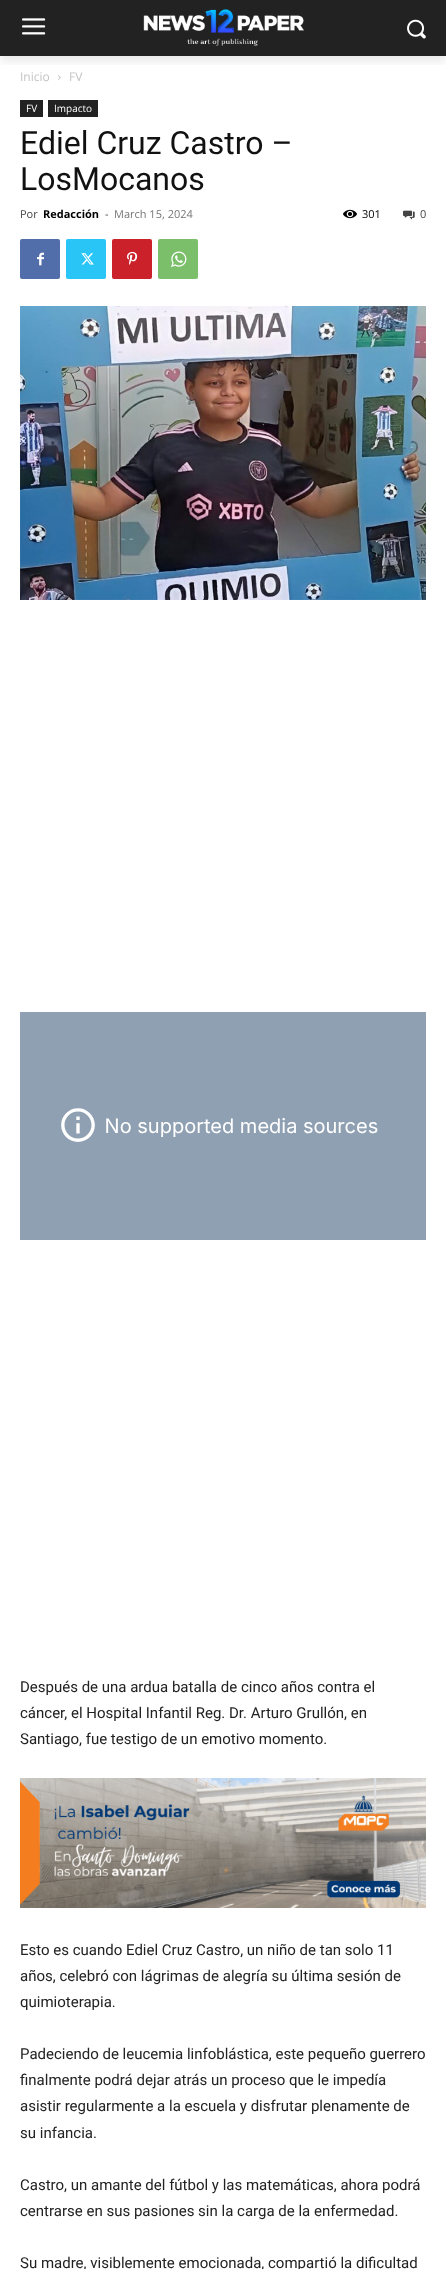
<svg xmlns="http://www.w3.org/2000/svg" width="446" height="2269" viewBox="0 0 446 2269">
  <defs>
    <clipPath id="clip1"><rect x="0" y="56" width="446" height="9"/></clipPath>
    <filter id="blur1" x="-50%" y="-200%" width="200%" height="500%"><feGaussianBlur stdDeviation="4"/></filter>
  </defs>
  <rect width="100%" height="100%" fill="#ffffff"/>
  <rect x="0" y="0" width="446" height="56" fill="#222222"/>
  <image x="22" y="18" width="24" height="17" href="img1.png"/>
  <image x="143" y="9" width="161" height="37" href="img2.png"/>
  <image x="407" y="19" width="19" height="20" href="img3.png"/>
  <g clip-path="url(#clip1)">
    <rect x="0" y="6" width="446" height="56" fill="#000000" fill-opacity="0.08" filter="url(#blur1)"/>
  </g>
  <text x="20" y="81" font-family="Open Sans" font-size="12" fill="#c3c3c3">Inicio</text>
  <image x="58" y="75" width="3" height="5" href="img4.png"/>
  <text x="69" y="81" font-family="Open Sans" font-size="12" fill="#c3c3c3">FV</text>
  <rect x="20" y="100" width="23" height="17" fill="#222222"/>
  <text x="26" y="112" font-family="Open Sans" font-size="10" fill="#ffffff">FV</text>
  <rect x="48" y="100" width="50" height="17" fill="#222222"/>
  <text x="54" y="112" font-family="Open Sans" font-size="10" fill="#ffffff">Impacto</text>
  <text x="20" y="154" font-family="Roboto" font-size="32" fill="#111111">Ediel Cruz Castro –</text>
  <text x="20" y="190" font-family="Roboto" font-size="32" fill="#111111">LosMocanos</text>
  <text x="20" y="218" font-family="Open Sans" font-size="11" fill="#444444">Por</text>
  <text x="43" y="218" font-family="Open Sans" font-size="11" font-weight="bold" fill="#000000">Redacción</text>
  <text x="105" y="218" font-family="Open Sans" font-size="11" fill="#444444">-</text>
  <text x="114" y="218" font-family="Open Sans" font-size="11" fill="#767676">March 15, 2024</text>
  <image x="343" y="209" width="14" height="10" href="img5.png"/>
  <text x="362" y="218" font-family="Open Sans" font-size="11" fill="#000000">301</text>
  <image x="403" y="210" width="12" height="10" href="img6.png"/>
  <text x="420" y="218" font-family="Open Sans" font-size="11" fill="#444444">0</text>
  <rect x="20" y="239" width="40" height="40" rx="2" fill="#516eab"/>
  <image x="37" y="252" width="7" height="14" href="img7.png"/>
  <rect x="66" y="239" width="40" height="40" rx="2" fill="#29c5f6"/>
  <image x="81" y="253" width="13" height="12" href="img8.png"/>
  <rect x="112" y="239" width="40" height="40" rx="2" fill="#ca212a"/>
  <image x="127" y="251" width="11" height="14" href="img9.png"/>
  <rect x="158" y="239" width="40" height="40" rx="2" fill="#7bbf6a"/>
  <image x="171" y="251" width="16" height="16" href="img10.png"/>
  <image x="20" y="306" width="406" height="294" href="img11.png"/>
  <image x="20" y="1012" width="406" height="228" href="img12.png"/>
  <text x="20" y="1692" font-family="Roboto" font-size="15" fill="#222222">Después de una ardua batalla de cinco años contra el</text>
  <text x="20" y="1718" font-family="Roboto" font-size="15" fill="#222222">cáncer, el Hospital Infantil Reg. Dr. Arturo Grullón, en</text>
  <text x="20" y="1744" font-family="Roboto" font-size="15" fill="#222222">Santiago, fue testigo de un emotivo momento.</text>
  <image x="20" y="1778" width="406" height="130" href="img13.png"/>
  <text x="20" y="1955" font-family="Roboto" font-size="15" fill="#222222">Esto es cuando Ediel Cruz Castro, un niño de tan solo 11</text>
  <text x="20" y="1981" font-family="Roboto" font-size="15" fill="#222222">años, celebró con lágrimas de alegría su última sesión de</text>
  <text x="20" y="2007" font-family="Roboto" font-size="15" fill="#222222">quimioterapia.</text>
  <text x="20" y="2059" font-family="Roboto" font-size="15" fill="#222222">Padeciendo de leucemia linfoblástica, este pequeño guerrero</text>
  <text x="20" y="2085" font-family="Roboto" font-size="15" fill="#222222">finalmente podrá dejar atrás un proceso que le impedía</text>
  <text x="20" y="2111" font-family="Roboto" font-size="15" fill="#222222">asistir regularmente a la escuela y disfrutar plenamente de</text>
  <text x="20" y="2138" font-family="Roboto" font-size="15" fill="#222222">su infancia.</text>
  <text x="20" y="2190" font-family="Roboto" font-size="15" fill="#222222">Castro, un amante del fútbol y las matemáticas, ahora podrá</text>
  <text x="20" y="2216" font-family="Roboto" font-size="15" fill="#222222">centrarse en sus pasiones sin la carga de la enfermedad.</text>
  <text x="20" y="2268" font-family="Roboto" font-size="15" fill="#222222">Su madre, visiblemente emocionada, compartió la dificultad</text>
</svg>
